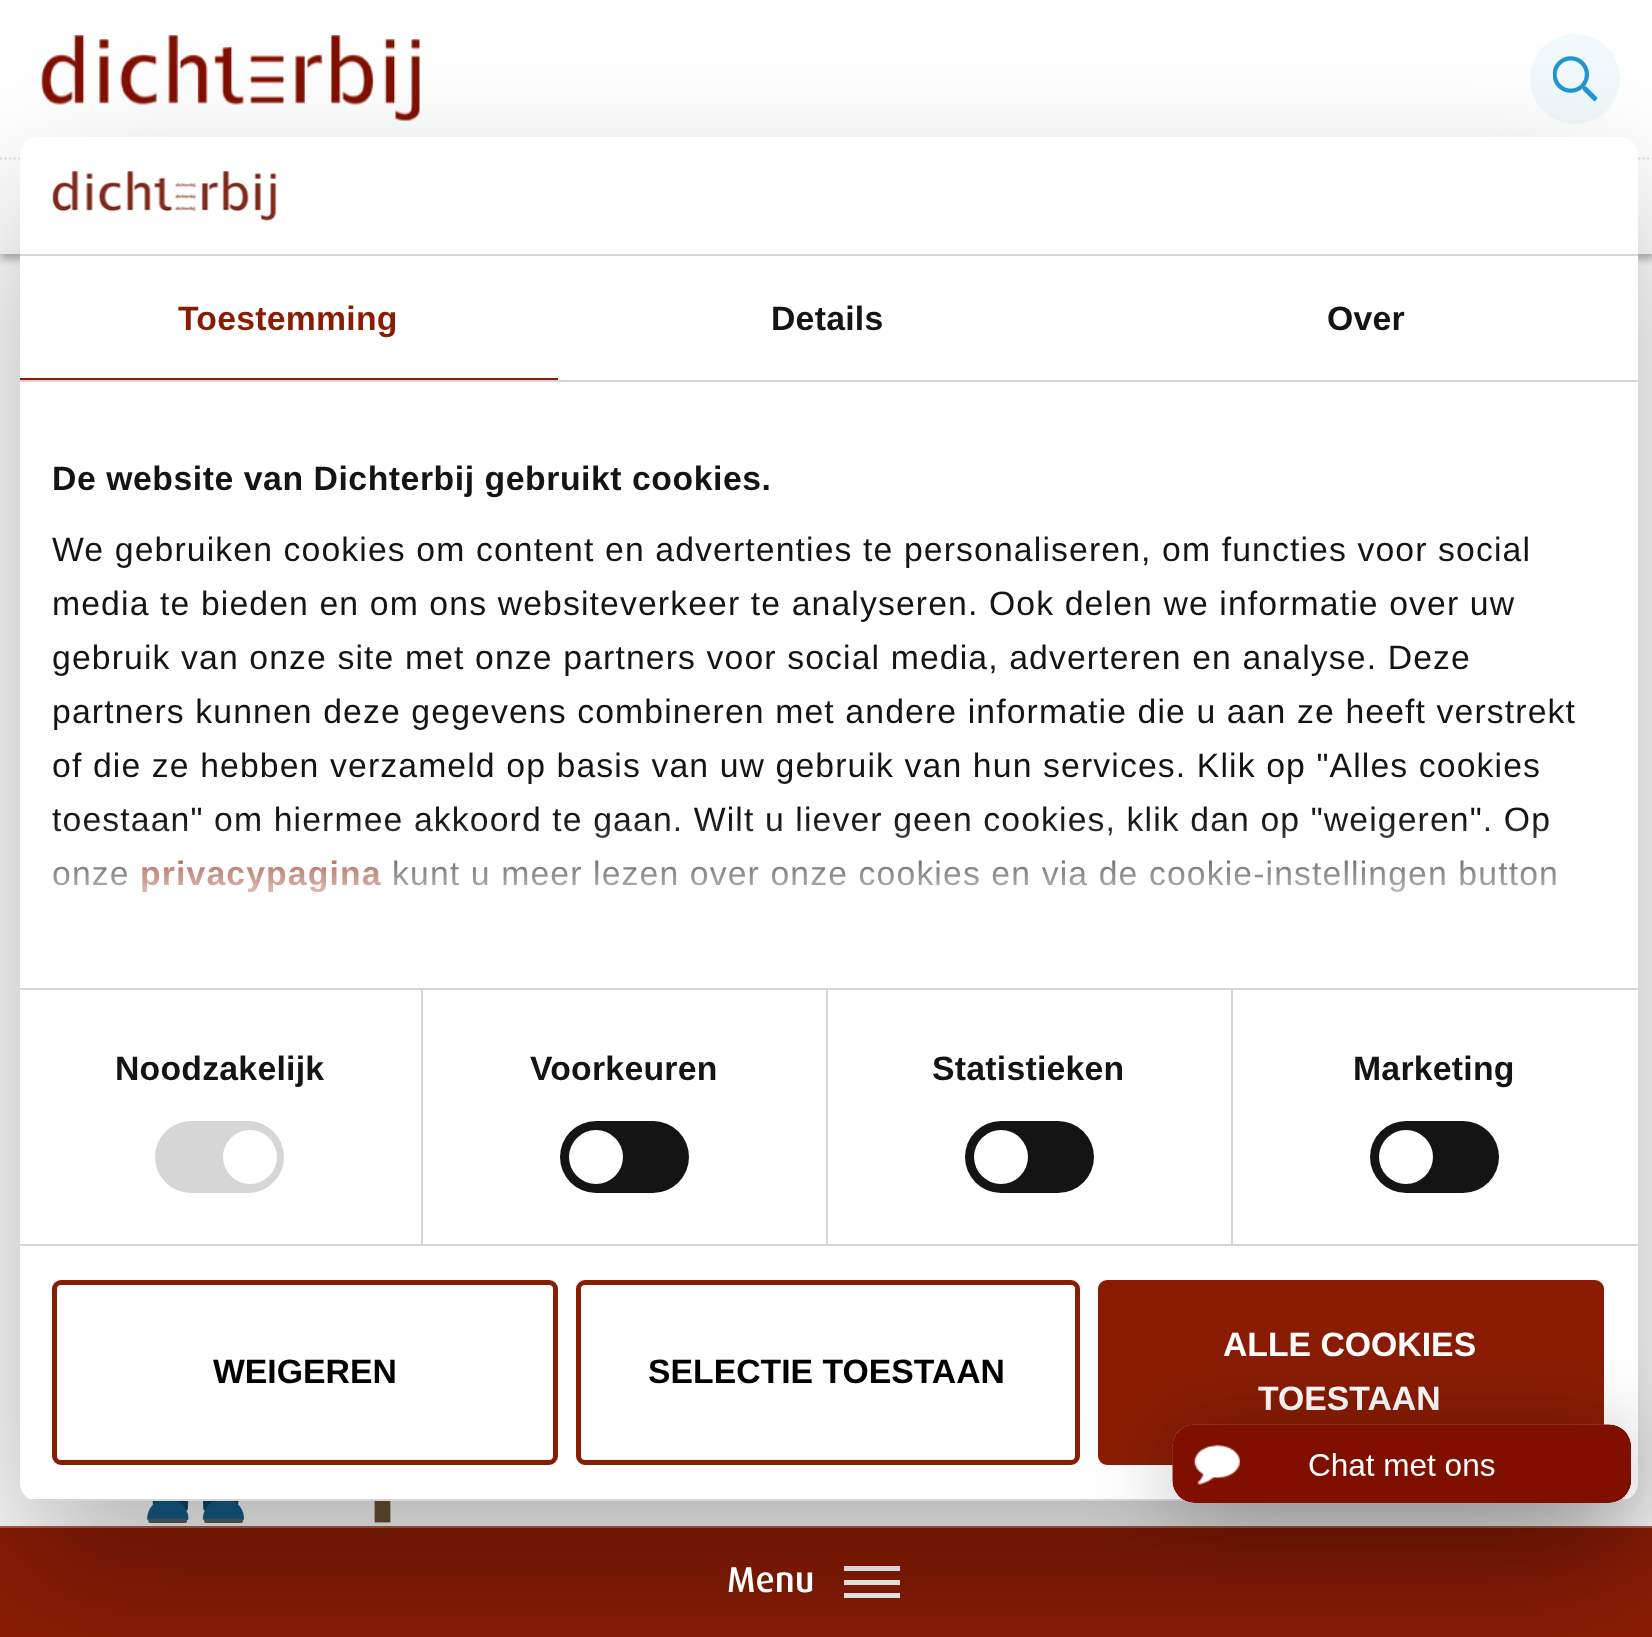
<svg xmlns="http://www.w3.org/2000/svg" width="1652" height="1637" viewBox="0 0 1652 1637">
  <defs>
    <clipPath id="clip1"><rect x="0" y="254" width="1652" height="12"/></clipPath>
    <filter id="blur1" x="-50%" y="-200%" width="200%" height="500%"><feGaussianBlur stdDeviation="4.5"/></filter>
    <filter id="blur2" x="-50%" y="-200%" width="200%" height="500%"><feGaussianBlur stdDeviation="76.5"/></filter>
    <linearGradient id="g1" gradientUnits="userSpaceOnUse" x1="813" y1="988" x2="813" y2="819"><stop offset="0" stop-color="#ffffff"/><stop offset="0.5" stop-color="#ffffff" stop-opacity="0.8"/><stop offset="1" stop-color="#ffffff" stop-opacity="0"/></linearGradient>
    <clipPath id="clip2"><rect x="20" y="137" width="1618" height="1364" rx="18"/></clipPath>
    <filter id="blur3" x="-50%" y="-200%" width="200%" height="500%"><feGaussianBlur stdDeviation="45"/></filter>
  </defs>
  <rect width="100%" height="100%" fill="#ffffff"/>
  <g clip-path="url(#clip1)">
    <rect x="0" y="5" width="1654" height="254" fill="#000000" fill-opacity="0.3" filter="url(#blur1)"/>
  </g>
  <image x="41" y="35" width="379" height="86" href="img1.png"/>
  <circle cx="1575" cy="79" r="45" fill="#f2f9fc"/>
  <image x="1553" y="56" width="45" height="45" href="img2.png"/>
  <path d="M0 158.5H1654" fill="none" stroke="#e0e0e0" stroke-width="2.2" stroke-dasharray="2.25 2.25"/>
  <image x="147" y="1501" width="244" height="22" href="img3.png"/>
  <rect x="0" y="1528" width="1652" height="109" fill="#8a1c03"/>
  <rect x="0" y="1526" width="1652" height="2" fill="#ad604f"/>
  <rect x="844" y="1580" width="56" height="5" fill="#ffffff"/>
  <rect x="844" y="1566" width="56" height="5" fill="#ffffff"/>
  <rect x="844" y="1593" width="56" height="5" fill="#ffffff"/>
  <rect x="20" y="209" width="1618" height="1364" rx="18" fill="#000000" fill-opacity="0.3" filter="url(#blur2)"/>
  <rect x="20" y="137" width="1618" height="1364" rx="18" fill="#ffffff"/>
  <rect x="20" y="254" width="1618" height="2" fill="#d6d6d6"/>
  <image x="52" y="171" width="225" height="50" href="img4.png"/>
  <rect x="20" y="380" width="1618" height="2" fill="#d6d6d6"/>
  <rect x="20" y="378" width="538" height="2" fill="#8a1c03"/>
  <text x="178" y="330" font-family="Liberation Sans" font-size="33.75" font-weight="bold" letter-spacing="0.25" fill="#8a1c03">Toestemming</text>
  <text x="771" y="330" font-family="Liberation Sans" font-size="33.75" font-weight="bold" letter-spacing="0.25" fill="#141414">Details</text>
  <text x="1327" y="330" font-family="Liberation Sans" font-size="33.75" font-weight="bold" letter-spacing="0.25" fill="#141414">Over</text>
  <rect x="20" y="988" width="1618" height="2" fill="#d6d6d6"/>
  <text x="52" y="490" font-family="Liberation Sans" font-size="33.75" font-weight="bold" letter-spacing="0.55" fill="#141414">De website van Dichterbij gebruikt cookies.</text>
  <text x="52" y="561" font-family="Liberation Sans" font-size="33.75" letter-spacing="1.12" fill="#141414">We gebruiken cookies om content en advertenties te personaliseren, om functies voor social</text>
  <text x="52" y="615" font-family="Liberation Sans" font-size="33.75" letter-spacing="1.12" fill="#141414">media te bieden en om ons websiteverkeer te analyseren. Ook delen we informatie over uw</text>
  <text x="52" y="669" font-family="Liberation Sans" font-size="33.75" letter-spacing="1.12" fill="#141414">gebruik van onze site met onze partners voor social media, adverteren en analyse. Deze</text>
  <text x="52" y="723" font-family="Liberation Sans" font-size="33.75" letter-spacing="1.12" fill="#141414">partners kunnen deze gegevens combineren met andere informatie die u aan ze heeft verstrekt</text>
  <text x="52" y="777" font-family="Liberation Sans" font-size="33.75" letter-spacing="1.12" fill="#141414">of die ze hebben verzameld op basis van uw gebruik van hun services. Klik op "Alles cookies</text>
  <text x="52" y="831" font-family="Liberation Sans" font-size="33.75" letter-spacing="1.12" fill="#141414">toestaan" om hiermee akkoord te gaan. Wilt u liever geen cookies, klik dan op "weigeren". Op</text>
  <text x="52" y="885" font-family="Liberation Sans" font-size="33.75" letter-spacing="1.12" fill="#141414">onze</text>
  <text x="140" y="885" font-family="Liberation Sans" font-size="33.75" font-weight="bold" letter-spacing="1.12" fill="#8a1c03">privacypagina</text>
  <text x="392" y="885" font-family="Liberation Sans" font-size="33.75" letter-spacing="1.12" fill="#141414">kunt u meer lezen over onze cookies en via de cookie-instellingen button</text>
  <rect x="53" y="821" width="1504" height="72" fill="url(#g1)"/>
  <rect x="20" y="1244" width="1618" height="2" fill="#d6d6d6"/>
  <rect x="421" y="990" width="2" height="254" fill="#d6d6d6"/>
  <text x="115" y="1080" font-family="Liberation Sans" font-size="33.75" font-weight="bold" letter-spacing="0.25" fill="#141414">Noodzakelijk</text>
  <rect x="155" y="1121" width="129" height="72" rx="36" fill="#d6d6d6"/>
  <circle cx="250" cy="1157" r="27" fill="#ffffff"/>
  <rect x="826" y="990" width="2" height="254" fill="#d6d6d6"/>
  <text x="530" y="1080" font-family="Liberation Sans" font-size="33.75" font-weight="bold" letter-spacing="0.25" fill="#141414">Voorkeuren</text>
  <rect x="560" y="1121" width="129" height="72" rx="36" fill="#141414"/>
  <circle cx="596" cy="1157" r="27" fill="#ffffff"/>
  <rect x="1231" y="990" width="2" height="254" fill="#d6d6d6"/>
  <text x="932" y="1080" font-family="Liberation Sans" font-size="33.75" font-weight="bold" letter-spacing="0.25" fill="#141414">Statistieken</text>
  <rect x="965" y="1121" width="129" height="72" rx="36" fill="#141414"/>
  <circle cx="1001" cy="1157" r="27" fill="#ffffff"/>
  <text x="1353" y="1080" font-family="Liberation Sans" font-size="33.75" font-weight="bold" letter-spacing="0.25" fill="#141414">Marketing</text>
  <rect x="1370" y="1121" width="129" height="72" rx="36" fill="#141414"/>
  <circle cx="1406" cy="1157" r="27" fill="#ffffff"/>
  <g clip-path="url(#clip2)">
    <rect x="30" y="1499" width="1598" height="2" fill="#d6d6d6"/>
  </g>
  <rect x="54.5" y="1282.5" width="501" height="180" rx="6.5" fill="none" stroke="#8a1c03" stroke-width="5"/>
  <text x="213" y="1383" font-family="Liberation Sans" font-size="33.75" font-weight="bold" fill="#000000">WEIGEREN</text>
  <rect x="578.5" y="1282.5" width="499" height="180" rx="6.5" fill="none" stroke="#8a1c03" stroke-width="5"/>
  <text x="648" y="1383" font-family="Liberation Sans" font-size="33.75" font-weight="bold" fill="#000000">SELECTIE TOESTAAN</text>
  <rect x="1100.5" y="1282.5" width="501" height="180" rx="6.5" fill="#8a1c03" stroke="#8a1c03" stroke-width="5"/>
  <text x="1223" y="1356" font-family="Liberation Sans" font-size="33.75" font-weight="bold" fill="#ffffff">ALLE COOKIES</text>
  <text x="1258" y="1410" font-family="Liberation Sans" font-size="33.75" font-weight="bold" fill="#ffffff">TOESTAAN</text>
  <text x="727" y="1592" font-family="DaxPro" font-size="36" font-weight="500" fill="#ffffff">Menu</text>
  <rect x="1172" y="1436" width="459" height="78" rx="23" fill="#000000" fill-opacity="0.3" filter="url(#blur3)"/>
  <image x="1172" y="1424" width="459" height="79" href="img5.png"/>
</svg>
